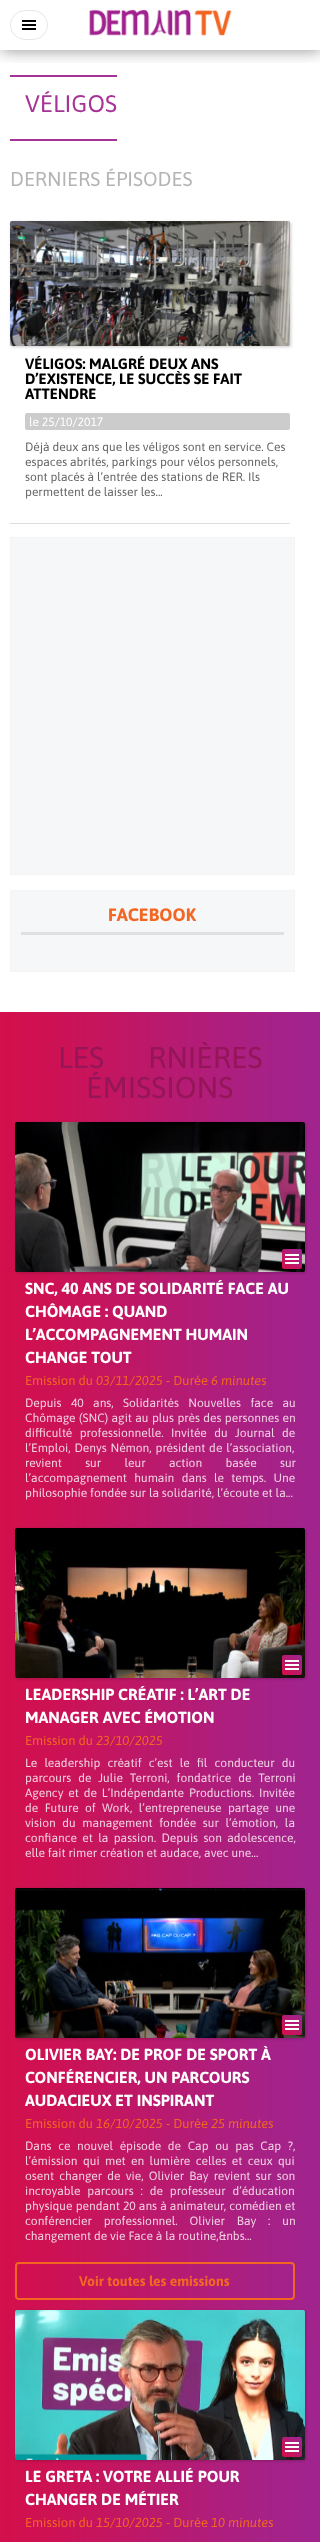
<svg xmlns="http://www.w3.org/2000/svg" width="320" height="2542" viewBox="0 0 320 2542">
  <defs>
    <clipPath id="clip1"><rect x="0" y="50" width="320" height="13"/></clipPath>
    <filter id="blur1" x="-50%" y="-200%" width="200%" height="500%"><feGaussianBlur stdDeviation="7.5"/></filter>
    <filter id="blur2" x="-50%" y="-200%" width="200%" height="500%"><feGaussianBlur stdDeviation="1.5"/></filter>
  </defs>
  <rect width="100%" height="100%" fill="#ffffff"/>
  <g clip-path="url(#clip1)">
    <rect x="1" y="1" width="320" height="50" fill="#000000" fill-opacity="0.4" filter="url(#blur1)"/>
  </g>
  <rect x="10.5" y="10.5" width="37" height="29" rx="14.5" fill="none" stroke="#e6e6e6"/>
  <image x="22" y="20" width="14" height="10" href="img1.png"/>
  <image x="89" y="9" width="143" height="27" href="img2.png"/>
  <rect x="10" y="75" width="107" height="2" fill="#a73396"/>
  <rect x="10" y="139" width="107" height="2" fill="#a73396"/>
  <text x="25" y="112" font-family="Asap" font-size="24" fill="#a73396">VÉLIGOS</text>
  <text x="10" y="186" font-family="Asap" font-size="20" fill="#b4b4b4">DERNIERS ÉPISODES</text>
  <rect x="11" y="222" width="280" height="125" rx="2" fill="#000000" fill-opacity="0.2" filter="url(#blur2)"/>
  <image x="10" y="221" width="280" height="125" href="img3.png"/>
  <text x="25" y="369" font-family="Asap" font-size="15" font-weight="bold" fill="#000000">VÉLIGOS: MALGRÉ DEUX ANS</text>
  <text x="25" y="384" font-family="Asap" font-size="15" font-weight="bold" fill="#000000">D’EXISTENCE, LE SUCCÈS SE FAIT</text>
  <text x="25" y="399" font-family="Asap" font-size="15" font-weight="bold" fill="#000000">ATTENDRE</text>
  <rect x="25" y="413" width="265" height="17" rx="2" fill="#cccccc"/>
  <text x="29" y="426" font-family="Asap" font-size="12" fill="#ffffff">le 25/10/2017</text>
  <text x="25" y="451" font-family="Asap" font-size="12" fill="#666666">Déjà deux ans que les véligos sont en service. Ces</text>
  <text x="25" y="466" font-family="Asap" font-size="12" fill="#666666">espaces abrités, parkings pour vélos personnels,</text>
  <text x="25" y="481" font-family="Asap" font-size="12" fill="#666666">sont placés à l’entrée des stations de RER. Ils</text>
  <text x="25" y="496" font-family="Asap" font-size="12" fill="#666666">permettent de laisser les...</text>
  <rect x="10" y="523" width="280" height="1" fill="#dddddd"/>
  <rect x="10.5" y="537.5" width="284" height="337" fill="#f6f7f8" stroke="#f4f4f4"/>
  <rect x="10.5" y="890.5" width="284" height="81" fill="#f6f7f8" stroke="#f4f4f4"/>
  <rect x="21" y="932" width="263" height="3" fill="#e0e0e0"/>
  <text x="108" y="921" font-family="Asap" font-size="18" font-weight="bold" fill="#f26722">FACEBOOK</text>
  <image x="0" y="1012" width="320" height="1530" href="img4.png"/>
  <text x="58" y="1068" font-family="Asap" font-size="30" fill="#941558">LES</text>
  <text x="148" y="1068" font-family="Asap" font-size="30" fill="#941558">RNIÈRES</text>
  <text x="86" y="1098" font-family="Asap" font-size="30" fill="#941558">ÉMISSIONS</text>
  <rect x="16" y="1123" width="290" height="150" rx="2" fill="#000000" fill-opacity="0.2" filter="url(#blur2)"/>
  <image x="15" y="1122" width="290" height="150" href="img5.png"/>
  <image x="282" y="1249" width="20" height="20" href="img6.png"/>
  <text x="25" y="1294" font-family="Asap" font-size="16" font-weight="bold" fill="#ffffff">SNC, 40 ANS DE SOLIDARITÉ FACE AU</text>
  <text x="25" y="1317" font-family="Asap" font-size="16" font-weight="bold" fill="#ffffff">CHÔMAGE : QUAND</text>
  <text x="25" y="1340" font-family="Asap" font-size="16" font-weight="bold" fill="#ffffff">L’ACCOMPAGNEMENT HUMAIN</text>
  <text x="25" y="1363" font-family="Asap" font-size="16" font-weight="bold" fill="#ffffff">CHANGE TOUT</text>
  <text x="25" y="1385" font-family="Asap" font-size="13" fill="#f26722">Emission du</text>
  <text x="96" y="1385" font-family="Asap" font-size="13" font-style="italic" fill="#f26722">03/11/2025</text>
  <text x="166" y="1385" font-family="Asap" font-size="13" fill="#f26722">- Durée</text>
  <text x="211" y="1385" font-family="Asap" font-size="13" font-style="italic" fill="#f26722">6 minutes</text>
  <text x="25" y="1407" word-spacing="6.5" font-family="Asap" font-size="12" fill="#f1d1e2">Depuis 40 ans, Solidarités Nouvelles face au</text>
  <text x="25" y="1422" word-spacing="0.5" font-family="Asap" font-size="12" fill="#f1d1e2">Chômage (SNC) agit au plus près des personnes en</text>
  <text x="25" y="1437" word-spacing="4.5" font-family="Asap" font-size="12" fill="#f1d1e2">difficulté professionnelle. Invitée du Journal de</text>
  <text x="25" y="1452" word-spacing="1" font-family="Asap" font-size="12" fill="#f1d1e2">l’Emploi, Denys Némon, président de l’association,</text>
  <text x="25" y="1467" word-spacing="20.5" font-family="Asap" font-size="12" fill="#f1d1e2">revient sur leur action basée sur</text>
  <text x="25" y="1482" word-spacing="4.5" font-family="Asap" font-size="12" fill="#f1d1e2">l’accompagnement humain dans le temps. Une</text>
  <text x="25" y="1497" font-family="Asap" font-size="12" fill="#f1d1e2">philosophie fondée sur la solidarité, l’écoute et la...</text>
  <rect x="16" y="1529" width="290" height="150" rx="2" fill="#000000" fill-opacity="0.2" filter="url(#blur2)"/>
  <image x="15" y="1528" width="290" height="150" href="img7.png"/>
  <image x="282" y="1655" width="20" height="20" href="img8.png"/>
  <text x="25" y="1700" font-family="Asap" font-size="16" font-weight="bold" fill="#ffffff">LEADERSHIP CRÉATIF : L’ART DE</text>
  <text x="25" y="1723" font-family="Asap" font-size="16" font-weight="bold" fill="#ffffff">MANAGER AVEC ÉMOTION</text>
  <text x="25" y="1745" font-family="Asap" font-size="13" fill="#f26722">Emission du</text>
  <text x="96" y="1745" font-family="Asap" font-size="13" font-style="italic" fill="#f26722">23/10/2025</text>
  <text x="25" y="1767" word-spacing="4.25" font-family="Asap" font-size="12" fill="#f1d1e2">Le leadership créatif c’est le fil conducteur du</text>
  <text x="25" y="1782" word-spacing="4" font-family="Asap" font-size="12" fill="#f1d1e2">parcours de Julie Terroni, fondatrice de Terroni</text>
  <text x="25" y="1797" word-spacing="2" font-family="Asap" font-size="12" fill="#f1d1e2">Agency et de L’Indépendante Productions. Invitée</text>
  <text x="25" y="1812" word-spacing="3.5" font-family="Asap" font-size="12" fill="#f1d1e2">de Future of Work, l’entrepreneuse partage une</text>
  <text x="25" y="1827" word-spacing="3.75" font-family="Asap" font-size="12" fill="#f1d1e2">vision du management fondée sur l’émotion, la</text>
  <text x="25" y="1842" word-spacing="2.5" font-family="Asap" font-size="12" fill="#f1d1e2">confiance et la passion. Depuis son adolescence,</text>
  <text x="25" y="1857" font-family="Asap" font-size="12" fill="#f1d1e2">elle fait rimer création et audace, avec une...</text>
  <rect x="16" y="1889" width="290" height="150" rx="2" fill="#000000" fill-opacity="0.2" filter="url(#blur2)"/>
  <image x="15" y="1888" width="290" height="150" href="img9.png"/>
  <image x="282" y="2015" width="20" height="20" href="img10.png"/>
  <text x="25" y="2060" font-family="Asap" font-size="16" font-weight="bold" fill="#ffffff">OLIVIER BAY: DE PROF DE SPORT À</text>
  <text x="25" y="2083" font-family="Asap" font-size="16" font-weight="bold" fill="#ffffff">CONFÉRENCIER, UN PARCOURS</text>
  <text x="25" y="2106" font-family="Asap" font-size="16" font-weight="bold" fill="#ffffff">AUDACIEUX ET INSPIRANT</text>
  <text x="25" y="2128" font-family="Asap" font-size="13" fill="#f26722">Emission du</text>
  <text x="96" y="2128" font-family="Asap" font-size="13" font-style="italic" fill="#f26722">16/10/2025</text>
  <text x="166" y="2128" font-family="Asap" font-size="13" fill="#f26722">- Durée</text>
  <text x="211" y="2128" font-family="Asap" font-size="13" font-style="italic" fill="#f26722">25 minutes</text>
  <text x="25" y="2150" word-spacing="3.75" font-family="Asap" font-size="12" fill="#f1d1e2">Dans ce nouvel épisode de Cap ou pas Cap ?,</text>
  <text x="25" y="2165" word-spacing="2.5" font-family="Asap" font-size="12" fill="#f1d1e2">l’émission qui met en lumière celles et ceux qui</text>
  <text x="25" y="2180" word-spacing="2.25" font-family="Asap" font-size="12" fill="#f1d1e2">osent changer de vie, Olivier Bay revient sur son</text>
  <text x="25" y="2195" word-spacing="4" font-family="Asap" font-size="12" fill="#f1d1e2">incroyable parcours : de professeur d’éducation</text>
  <text x="25" y="2210" word-spacing="0.25" font-family="Asap" font-size="12" fill="#f1d1e2">physique pendant 20 ans à animateur, comédien et</text>
  <text x="25" y="2225" word-spacing="9" font-family="Asap" font-size="12" fill="#f1d1e2">conférencier professionnel. Olivier Bay : un</text>
  <text x="25" y="2240" font-family="Asap" font-size="12" fill="#f1d1e2">changement de vie Face à la routine,&amp;nbs...</text>
  <rect x="16" y="2263" width="278" height="36" rx="3" fill="none" stroke="#f26622" stroke-width="2"/>
  <text x="79" y="2286" font-family="Asap" font-size="14" font-weight="bold" fill="#f26722">Voir toutes les emissions</text>
  <rect x="16" y="2311" width="290" height="150" rx="2" fill="#000000" fill-opacity="0.2" filter="url(#blur2)"/>
  <image x="15" y="2310" width="290" height="150" href="img11.png"/>
  <image x="282" y="2437" width="20" height="20" href="img12.png"/>
  <text x="25" y="2482" font-family="Asap" font-size="16" font-weight="bold" fill="#ffffff">LE GRETA : VOTRE ALLIÉ POUR</text>
  <text x="25" y="2505" font-family="Asap" font-size="16" font-weight="bold" fill="#ffffff">CHANGER DE MÉTIER</text>
  <text x="25" y="2527" font-family="Asap" font-size="13" fill="#f26722">Emission du</text>
  <text x="96" y="2527" font-family="Asap" font-size="13" font-style="italic" fill="#f26722">15/10/2025</text>
  <text x="166" y="2527" font-family="Asap" font-size="13" fill="#f26722">- Durée</text>
  <text x="211" y="2527" font-family="Asap" font-size="13" font-style="italic" fill="#f26722">10 minutes</text>
</svg>
